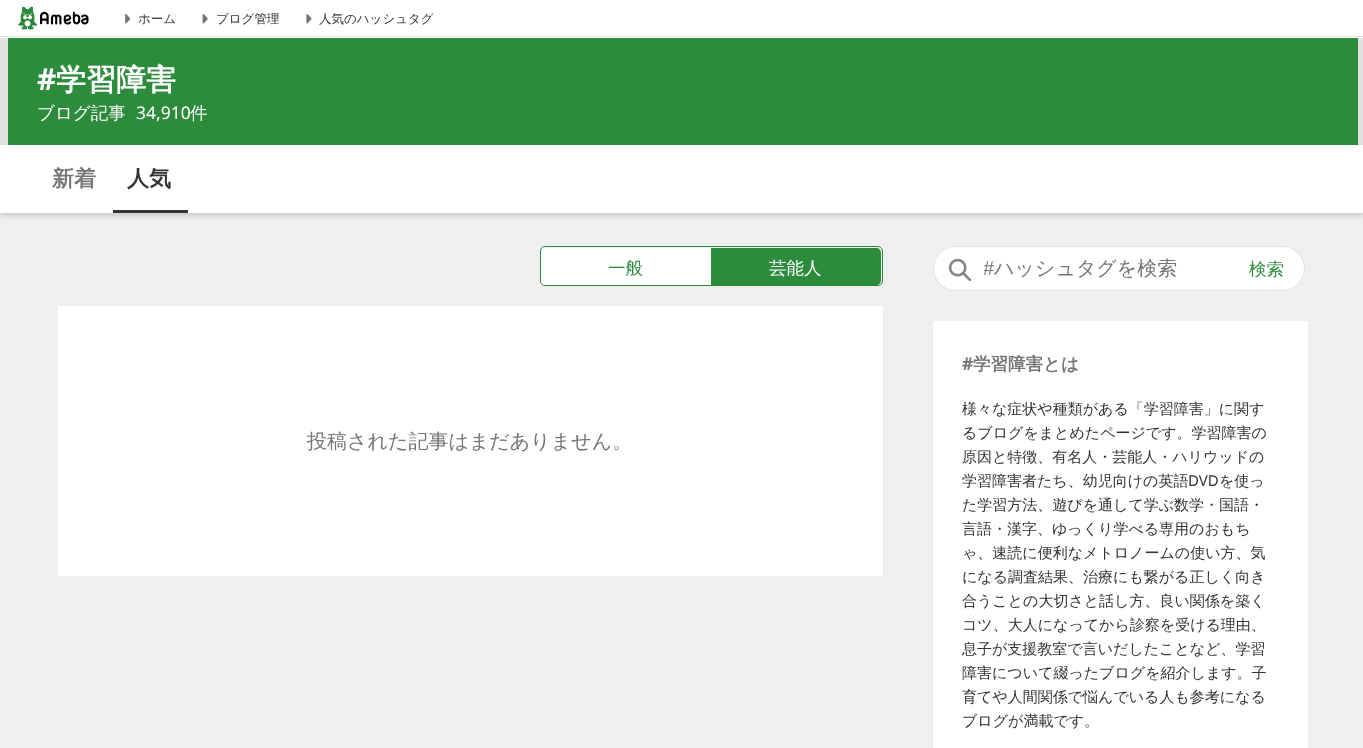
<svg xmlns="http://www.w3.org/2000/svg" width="1363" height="748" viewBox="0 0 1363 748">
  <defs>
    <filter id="blur1" x="-50%" y="-200%" width="200%" height="500%"><feGaussianBlur stdDeviation="3"/></filter>
    <clipPath id="clip1"><rect x="984" y="256" width="260" height="27"/></clipPath>
  </defs>
  <rect width="100%" height="100%" fill="#efefef"/>
  <rect x="0" y="0" width="1363" height="38" fill="#ffffff"/>
  <rect x="0" y="36" width="1363" height="1" fill="#e2e2e2"/>
  <image x="18" y="6" width="71" height="24" href="img1.png"/>
  <image x="125" y="14" width="6" height="10" href="img2.png"/>
  <text x="138" y="23" font-family="WenQuanYi Zen Hei" font-size="12.5" font-weight="500" fill="#333333">ホーム</text>
  <image x="202" y="14" width="6" height="10" href="img3.png"/>
  <text x="216" y="23" font-family="WenQuanYi Zen Hei" font-size="12.5" font-weight="500" fill="#333333">ブログ管理</text>
  <image x="306" y="14" width="6" height="10" href="img4.png"/>
  <text x="319" y="23" font-family="WenQuanYi Zen Hei" font-size="12.5" font-weight="500" fill="#333333">人気のハッシュタグ</text>
  <rect x="0" y="38" width="1363" height="107" fill="#e2e2e2"/>
  <rect x="8" y="38" width="1350" height="107" fill="#2d8c3c"/>
  <text x="37" y="90" font-family="Noto Sans" font-size="30" font-weight="bold" fill="#ffffff">#</text>
  <text x="56" y="90" font-family="WenQuanYi Zen Hei" font-size="30" font-weight="bold" fill="#ffffff">学習障害</text>
  <text x="37" y="119" font-family="WenQuanYi Zen Hei" font-size="17.5" font-weight="500" fill="#ffffff">ブログ記事</text>
  <text x="136" y="119" font-family="Noto Sans" font-size="17.5" fill="#ffffff">34,910</text>
  <text x="190" y="119" font-family="WenQuanYi Zen Hei" font-size="17.5" font-weight="500" fill="#ffffff">件</text>
  <rect x="0" y="148" width="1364" height="67" fill="#000000" fill-opacity="0.2" filter="url(#blur1)"/>
  <rect x="0" y="145" width="1363" height="68" fill="#ffffff"/>
  <text x="52" y="186" font-family="WenQuanYi Zen Hei" font-size="22" font-weight="bold" fill="#757575">新着</text>
  <rect x="113" y="210" width="75" height="3" fill="#333333"/>
  <text x="127" y="186" font-family="WenQuanYi Zen Hei" font-size="22" font-weight="bold" fill="#333333">人気</text>
  <rect x="540.5" y="246.5" width="342" height="39" rx="4.5" fill="none" stroke="#2d8c3c"/>
  <path d="M546 248H711V285H546C543 285 541 283 541 280V253C541 250 543 248 546 248Z" fill="#ffffff"/>
  <text x="608" y="274" font-family="WenQuanYi Zen Hei" font-size="17.5" font-weight="500" fill="#2d8c3c">一般</text>
  <path d="M711 248H876C879 248 881 250 881 253V280C881 283 879 285 876 285H711Z" fill="#2d8c3c"/>
  <text x="769" y="274" font-family="WenQuanYi Zen Hei" font-size="17.5" font-weight="500" fill="#ffffff">芸能人</text>
  <rect x="58" y="306" width="825" height="270" fill="#ffffff"/>
  <text x="307" y="448" font-family="WenQuanYi Zen Hei" font-size="20" font-weight="500" fill="#757575">投稿された記事はまだありません。</text>
  <rect x="933.5" y="246.5" width="371" height="44" rx="22" fill="#ffffff" stroke="#e2e2e2"/>
  <image x="948" y="258" width="24" height="24" href="img5.png"/>
  <g clip-path="url(#clip1)">
    <text x="983" y="275" font-family="Liberation Sans" font-size="20" fill="#757575">#</text>
  </g>
  <text x="994" y="275" font-family="WenQuanYi Zen Hei" font-size="20" font-weight="500" fill="#757575">ハッシュタグを検索</text>
  <text x="1249" y="275" font-family="WenQuanYi Zen Hei" font-size="17.5" font-weight="500" fill="#2d8c3c">検索</text>
  <rect x="933" y="321" width="375" height="427" fill="#ffffff"/>
  <text x="962" y="370" font-family="Noto Sans" font-size="17.5" font-weight="bold" fill="#757575">#</text>
  <text x="973" y="370" font-family="WenQuanYi Zen Hei" font-size="17.5" font-weight="bold" fill="#757575">学習障害とは</text>
  <text x="962" y="414" font-family="WenQuanYi Zen Hei" font-size="15" font-weight="500" fill="#333333">様々な症状や種類がある「学習障害」に関す</text>
  <text x="962" y="438" font-family="WenQuanYi Zen Hei" font-size="15" font-weight="500" fill="#333333">るブログをまとめたページです。学習障害の</text>
  <text x="962" y="462" font-family="WenQuanYi Zen Hei" font-size="15" font-weight="500" fill="#333333">原因と特徴、有名人・芸能人・ハリウッドの</text>
  <text x="962" y="486" font-family="WenQuanYi Zen Hei" font-size="15" font-weight="500" fill="#333333">学習障害者たち、幼児向けの英語</text>
  <text x="1188" y="486" font-family="Noto Sans" font-size="15" fill="#333333">DVD</text>
  <text x="1219" y="486" font-family="WenQuanYi Zen Hei" font-size="15" font-weight="500" fill="#333333">を使っ</text>
  <text x="962" y="510" font-family="WenQuanYi Zen Hei" font-size="15" font-weight="500" fill="#333333">た学習方法、遊びを通して学ぶ数学・国語・</text>
  <text x="962" y="534" font-family="WenQuanYi Zen Hei" font-size="15" font-weight="500" fill="#333333">言語・漢字、ゆっくり学べる専用のおもち</text>
  <text x="962" y="558" font-family="WenQuanYi Zen Hei" font-size="15" font-weight="500" fill="#333333">ゃ、速読に便利なメトロノームの使い方、気</text>
  <text x="962" y="582" font-family="WenQuanYi Zen Hei" font-size="15" font-weight="500" fill="#333333">になる調査結果、治療にも繋がる正しく向き</text>
  <text x="962" y="606" font-family="WenQuanYi Zen Hei" font-size="15" font-weight="500" fill="#333333">合うことの大切さと話し方、良い関係を築く</text>
  <text x="962" y="630" font-family="WenQuanYi Zen Hei" font-size="15" font-weight="500" fill="#333333">コツ、大人になってから診察を受ける理由、</text>
  <text x="962" y="654" font-family="WenQuanYi Zen Hei" font-size="15" font-weight="500" fill="#333333">息子が支援教室で言いだしたことなど、学習</text>
  <text x="962" y="678" font-family="WenQuanYi Zen Hei" font-size="15" font-weight="500" fill="#333333">障害について綴ったブログを紹介します。子</text>
  <text x="962" y="702" font-family="WenQuanYi Zen Hei" font-size="15" font-weight="500" fill="#333333">育てや人間関係で悩んでいる人も参考になる</text>
  <text x="962" y="726" font-family="WenQuanYi Zen Hei" font-size="15" font-weight="500" fill="#333333">ブログが満載です。</text>
</svg>
